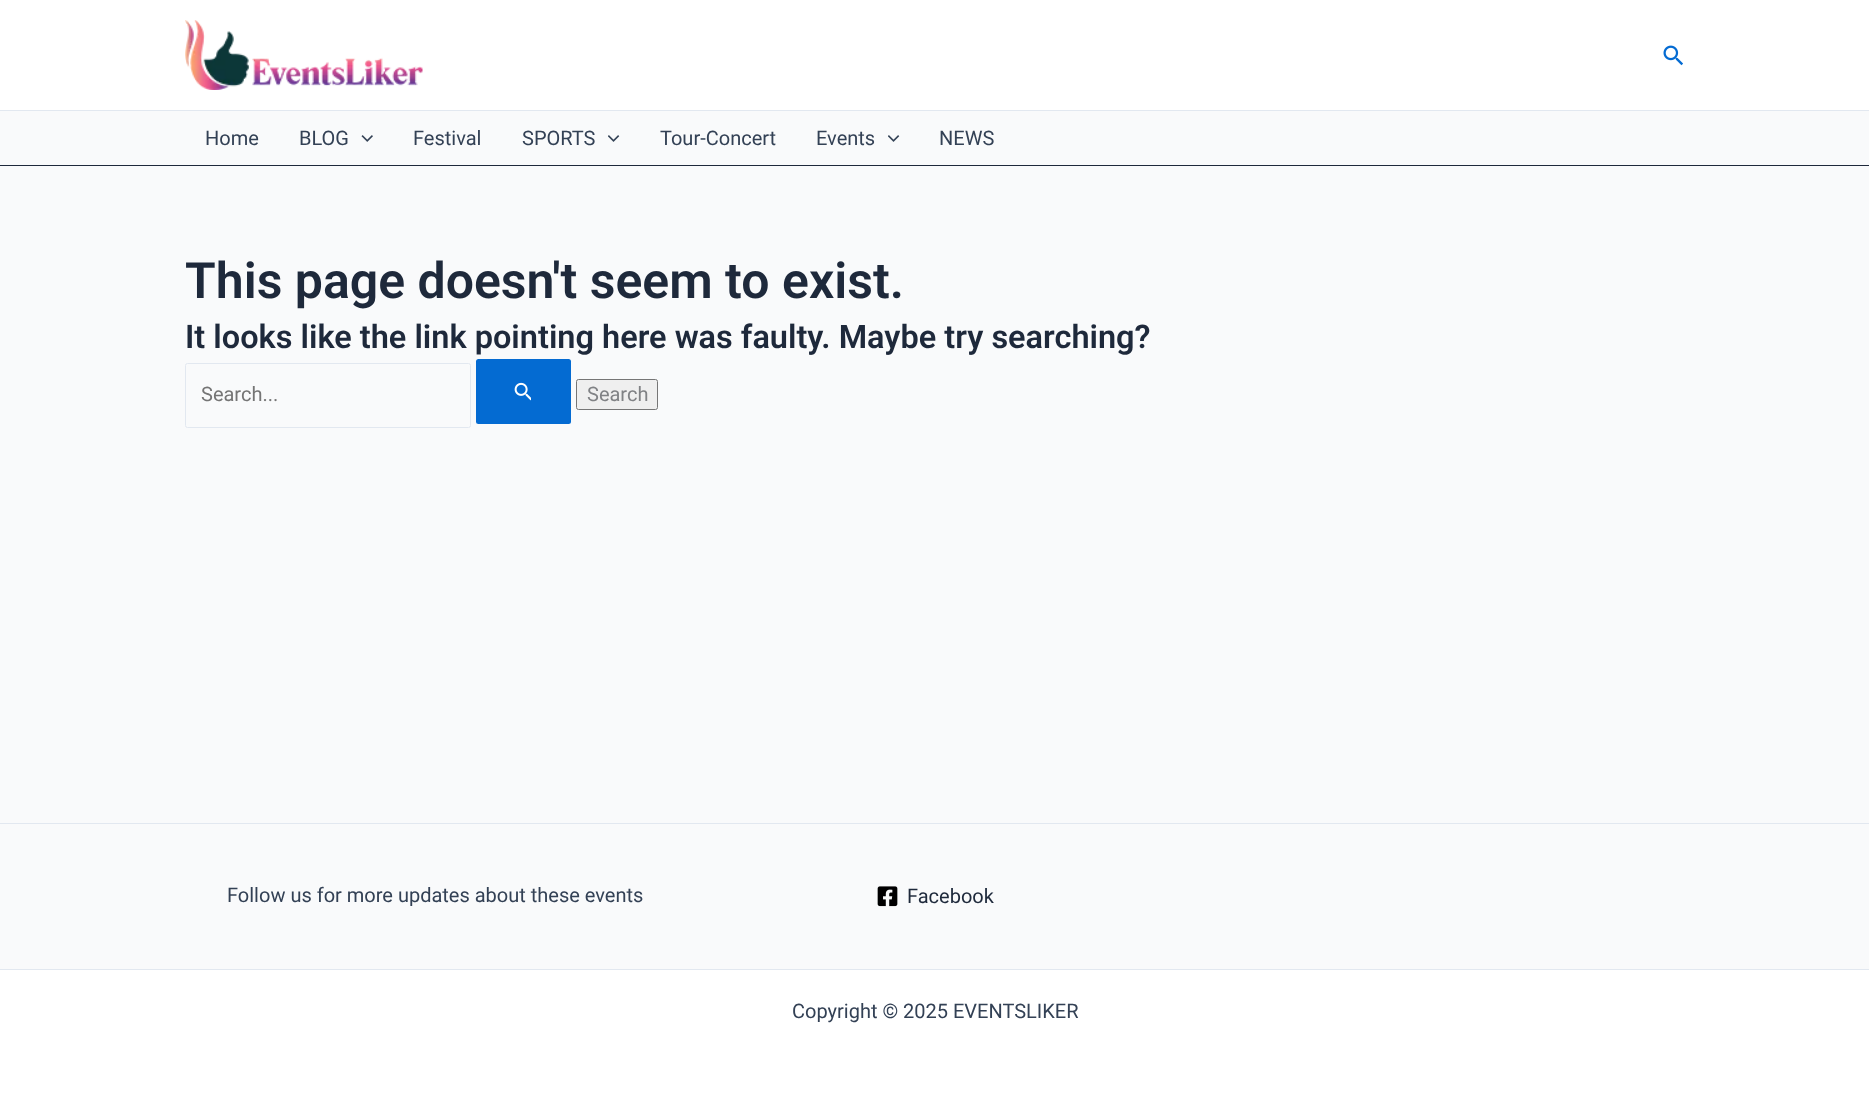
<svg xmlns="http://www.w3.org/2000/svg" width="1869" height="1119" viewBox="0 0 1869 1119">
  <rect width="100%" height="100%" fill="#f9fafb"/>
  <rect x="0" y="0" width="1869" height="110" fill="#ffffff"/>
  <rect x="0" y="110" width="1869" height="1" fill="#e2e8f0"/>
  <image x="185" y="20" width="238" height="70" href="img1.png"/>
  <image x="1663" y="45" width="20" height="21" href="img2.png"/>
  <rect x="0" y="165" width="1869" height="1" fill="#1e293b"/>
  <text x="205" y="145" font-family="Roboto" font-size="20" fill="#334155">Home</text>
  <text x="299" y="145" font-family="Roboto" font-size="20" fill="#334155">BLOG</text>
  <image x="361" y="135" width="12" height="7" href="img3.png"/>
  <text x="413" y="145" font-family="Roboto" font-size="20" fill="#334155">Festival</text>
  <text x="522" y="145" font-family="Roboto" font-size="20" fill="#334155">SPORTS</text>
  <image x="608" y="135" width="12" height="7" href="img4.png"/>
  <text x="660" y="145" font-family="Roboto" font-size="20" fill="#334155">Tour-Concert</text>
  <text x="816" y="145" font-family="Roboto" font-size="20" fill="#334155">Events</text>
  <image x="888" y="135" width="12" height="7" href="img4.png"/>
  <text x="939" y="145" font-family="Roboto" font-size="20" fill="#334155">NEWS</text>
  <text x="185" y="298" font-family="Roboto" font-size="50" font-weight="600" fill="#1e293b">This page doesn't seem to exist.</text>
  <text x="185" y="348" font-family="Roboto" font-size="32.5" font-weight="600" fill="#1e293b">It looks like the link pointing here was faulty. Maybe try searching?</text>
  <rect x="185.5" y="363.5" width="285" height="64" rx="2" fill="none" stroke="#e2e8f0"/>
  <text x="201" y="401" font-family="Roboto" font-size="20" fill="#757575">Search...</text>
  <rect x="476" y="359" width="95" height="65" rx="2.5" fill="#046bd2"/>
  <image x="514" y="382" width="17" height="19" href="img5.png"/>
  <rect x="576.5" y="379.5" width="81" height="30" rx="2" fill="#efefef" stroke="#767676"/>
  <text x="587" y="401" font-family="Roboto" font-size="20" fill="#808285">Search</text>
  <rect x="0" y="823" width="1869" height="1" fill="#e2e8f0"/>
  <text x="227" y="902" font-family="Roboto" font-size="20" fill="#334155">Follow us for more updates about these events</text>
  <image x="877" y="886" width="21" height="21" href="img6.png"/>
  <text x="907" y="903" font-family="Roboto" font-size="20" fill="#1e293b">Facebook</text>
  <rect x="0" y="970" width="1869" height="149" fill="#ffffff"/>
  <rect x="0" y="969" width="1869" height="1" fill="#e2e8f0"/>
  <text x="792" y="1018" font-family="Roboto" font-size="20" fill="#334155">Copyright © 2025 EVENTSLIKER</text>
</svg>
